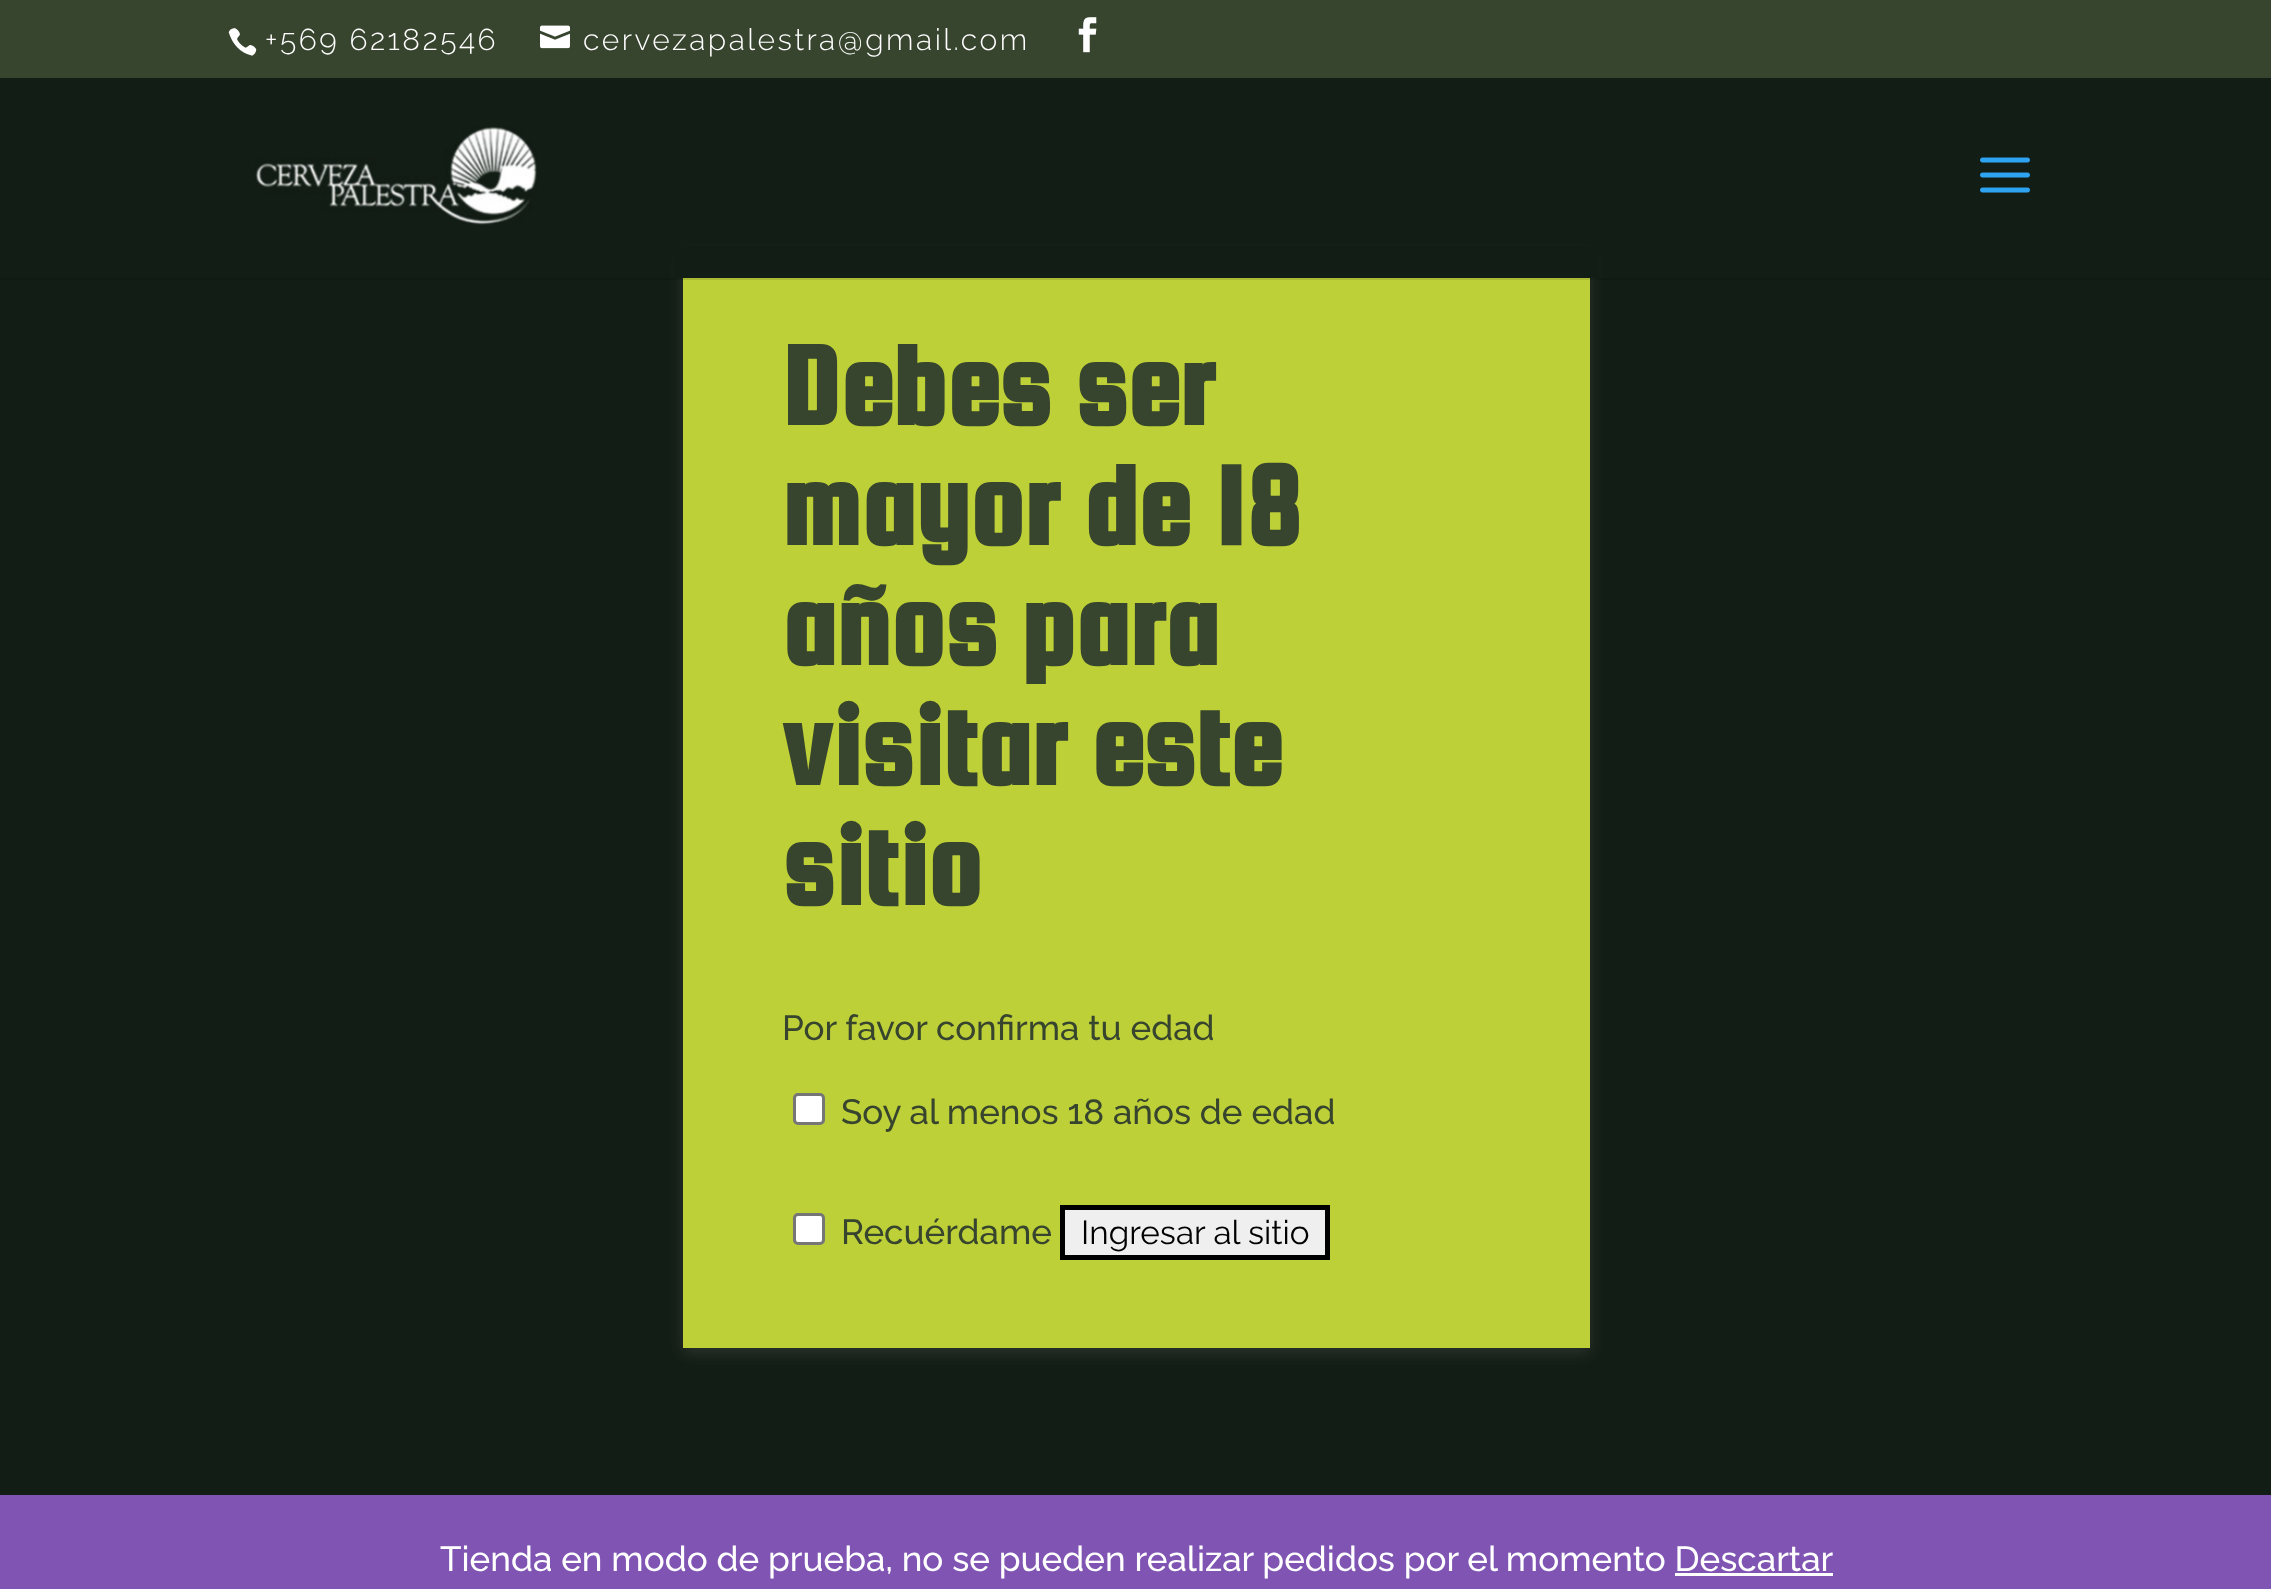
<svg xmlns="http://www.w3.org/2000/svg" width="2271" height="1589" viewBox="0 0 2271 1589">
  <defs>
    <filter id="blur1" x="-50%" y="-200%" width="200%" height="500%"><feGaussianBlur stdDeviation="7.5"/></filter>
  </defs>
  <rect width="100%" height="100%" fill="#121d15"/>
  <rect x="0" y="0" width="2271" height="78" fill="#37442e"/>
  <image x="228" y="28" width="29" height="28" href="img1.png"/>
  <text x="265" y="50" font-family="Raleway" font-size="30" font-weight="300" letter-spacing="2.5" fill="#ffffff">+569 62182546</text>
  <image x="540" y="25" width="30" height="24" href="img2.png"/>
  <text x="583" y="50" font-family="Raleway" font-size="30" font-weight="300" letter-spacing="2.5" fill="#ffffff">cervezapalestra@gmail.com</text>
  <image x="1078" y="17" width="19" height="36" href="img3.png"/>
  <rect x="683" y="255" width="907" height="1098" fill="#646464" fill-opacity="0.3" filter="url(#blur1)"/>
  <rect x="683" y="278" width="907" height="1070" fill="#bed038"/>
  <path d="M0 278V280H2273V80H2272V278Z" fill="#000000" fill-opacity="0.1"/>
  <rect x="674" y="246" width="925" height="32" fill="#121d15"/>
  <image x="255" y="126" width="282" height="99" href="img4.png"/>
  <image x="1980" y="157" width="50" height="36" href="img5.png"/>
  <text x="782" y="425" font-family="Squada One" font-size="120" font-weight="bold" fill="#37442e">Debes ser</text>
  <text x="782" y="545" font-family="Squada One" font-size="120" font-weight="bold" fill="#37442e">mayor de 18</text>
  <text x="782" y="665" font-family="Squada One" font-size="120" font-weight="bold" fill="#37442e">años para</text>
  <text x="782" y="785" font-family="Squada One" font-size="120" font-weight="bold" fill="#37442e">visitar este</text>
  <text x="782" y="905" font-family="Squada One" font-size="120" font-weight="bold" fill="#37442e">sitio</text>
  <text x="782" y="1040" font-family="Raleway" font-size="35" font-weight="500" fill="#37442e">Por favor confirma tu edad</text>
  <rect x="794.5" y="1094.5" width="29" height="29" rx="3.5" fill="#ffffff" stroke="#767676" stroke-width="3"/>
  <text x="841" y="1124" font-family="Raleway" font-size="35" font-weight="500" fill="#37442e">Soy al menos 18 años de edad</text>
  <rect x="794.5" y="1214.5" width="29" height="29" rx="3.5" fill="#ffffff" stroke="#767676" stroke-width="3"/>
  <text x="841" y="1244" font-family="Raleway" font-size="35" font-weight="500" fill="#37442e">Recuérdame</text>
  <rect x="1062.5" y="1207.5" width="265" height="50" fill="#efefef" stroke="#000000" stroke-width="5"/>
  <text x="1081" y="1244" font-family="Raleway" font-size="33.25" fill="#000000">Ingresar al sitio</text>
  <rect x="0" y="1495" width="2271" height="94" fill="#7f54b3"/>
  <text x="440" y="1571" font-family="Raleway" font-size="35" font-weight="500" fill="#ffffff">Tienda en modo de prueba, no se pueden realizar pedidos por el momento Descartar</text>
  <rect x="1675" y="1573" width="158" height="3" fill="#ffffff"/>
</svg>
